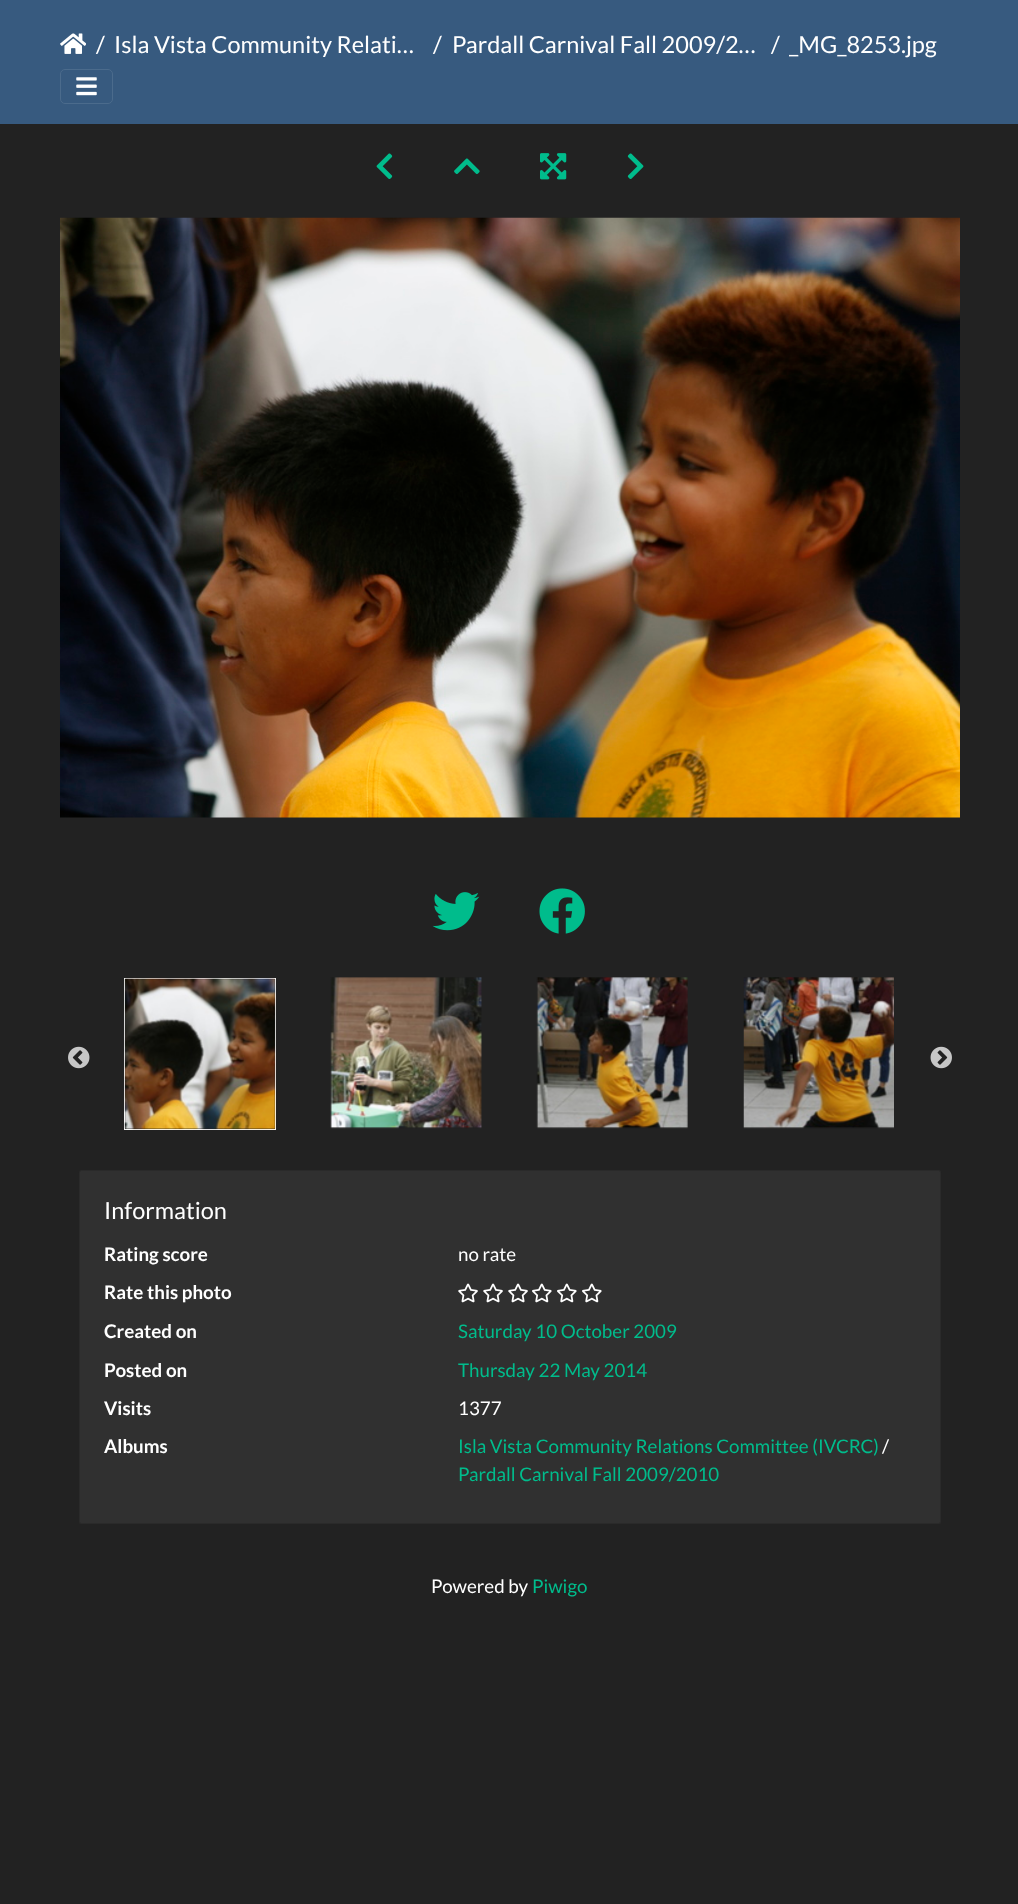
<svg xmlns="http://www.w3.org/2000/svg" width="1018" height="1904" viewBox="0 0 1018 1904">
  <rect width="100%" height="100%" fill="#222222"/>
  <rect x="0" y="0" width="1018" height="124" fill="#375a7f"/>
  <image x="60" y="33" width="26" height="21" href="img1.png"/>
  <text x="96" y="53" font-family="Lato" font-size="23.5" fill="#ffffff">/</text>
  <text x="114" y="53" font-family="Lato" font-size="23.5" fill="#ffffff">Isla Vista Community Relati…</text>
  <text x="433" y="53" font-family="Lato" font-size="23.5" fill="#ffffff">/</text>
  <text x="452" y="53" font-family="Lato" font-size="23.5" fill="#ffffff">Pardall Carnival Fall 2009/2…</text>
  <text x="771" y="53" font-family="Lato" font-size="23.5" fill="#ffffff">/</text>
  <text x="789" y="53" font-family="Lato" font-size="23.5" fill="#ffffff">_MG_8253.jpg</text>
  <rect x="60.5" y="69.5" width="52" height="34" rx="4.5" fill="none" stroke="#4b6b8c"/>
  <image x="76" y="77" width="21" height="19" href="img2.png"/>
  <image x="376" y="153" width="17" height="26" href="img3.png"/>
  <image x="454" y="158" width="26" height="16" href="img4.png"/>
  <image x="540" y="153" width="27" height="27" href="img5.png"/>
  <image x="627" y="153" width="17" height="26" href="img6.png"/>
  <image x="60" y="217" width="900" height="601" href="img7.png"/>
  <image x="432" y="892" width="48" height="39" href="img8.png"/>
  <image x="539" y="888" width="46" height="46" href="img9.png"/>
  <image x="68" y="1046" width="22" height="23" href="img10.png"/>
  <rect x="124.5" y="978.5" width="151" height="151" fill="none" stroke="#ffffff"/>
  <image x="124" y="978" width="152" height="152" href="img11.png"/>
  <image x="330" y="977" width="152" height="152" href="img12.png"/>
  <image x="536" y="977" width="152" height="152" href="img13.png"/>
  <image x="743" y="977" width="151" height="152" href="img14.png"/>
  <image x="930" y="1046" width="22" height="23" href="img15.png"/>
  <rect x="79" y="1170" width="862" height="354" rx="2.5" fill="#303030"/>
  <rect x="79.5" y="1170.5" width="861" height="353" rx="2" fill="none" stroke="#000000" stroke-opacity="0.12"/>
  <text x="104" y="1219" font-family="Lato" font-size="23.5" fill="#ffffff">Information</text>
  <text x="104" y="1261" font-family="Lato" font-size="18.75" font-weight="bold" fill="#ffffff">Rating score</text>
  <text x="458" y="1261" font-family="Lato" font-size="18.75" fill="#ffffff">no rate</text>
  <text x="104" y="1299" font-family="Lato" font-size="18.75" font-weight="bold" fill="#ffffff">Rate this photo</text>
  <image x="458" y="1283" width="20" height="20" href="img16.png"/>
  <image x="483" y="1283" width="20" height="20" href="img16.png"/>
  <image x="508" y="1283" width="20" height="20" href="img16.png"/>
  <image x="532" y="1283" width="20" height="20" href="img17.png"/>
  <image x="557" y="1283" width="20" height="20" href="img17.png"/>
  <image x="582" y="1283" width="20" height="20" href="img17.png"/>
  <text x="104" y="1338" font-family="Lato" font-size="18.75" font-weight="bold" fill="#ffffff">Created on</text>
  <text x="458" y="1338" font-family="Lato" font-size="18.75" fill="#00bc8c">Saturday 10 October 2009</text>
  <text x="104" y="1377" font-family="Lato" font-size="18.75" font-weight="bold" fill="#ffffff">Posted on</text>
  <text x="458" y="1377" font-family="Lato" font-size="18.75" fill="#00bc8c">Thursday 22 May 2014</text>
  <text x="104" y="1415" font-family="Lato" font-size="18.75" font-weight="bold" fill="#ffffff">Visits</text>
  <text x="458" y="1415" font-family="Lato" font-size="18.75" fill="#ffffff">1377</text>
  <text x="104" y="1453" font-family="Lato" font-size="18.75" font-weight="bold" fill="#ffffff">Albums</text>
  <text x="458" y="1453" font-family="Lato" font-size="18.75" fill="#00bc8c">Isla Vista Community Relations Committee (IVCRC)</text>
  <text x="882" y="1453" font-family="Lato" font-size="18.75" fill="#ffffff">/</text>
  <text x="458" y="1481" font-family="Lato" font-size="18.75" fill="#00bc8c">Pardall Carnival Fall 2009/2010</text>
  <text x="431" y="1593" font-family="Lato" font-size="18.75" fill="#ffffff">Powered by</text>
  <text x="532" y="1593" font-family="Lato" font-size="18.75" fill="#00bc8c">Piwigo</text>
</svg>
